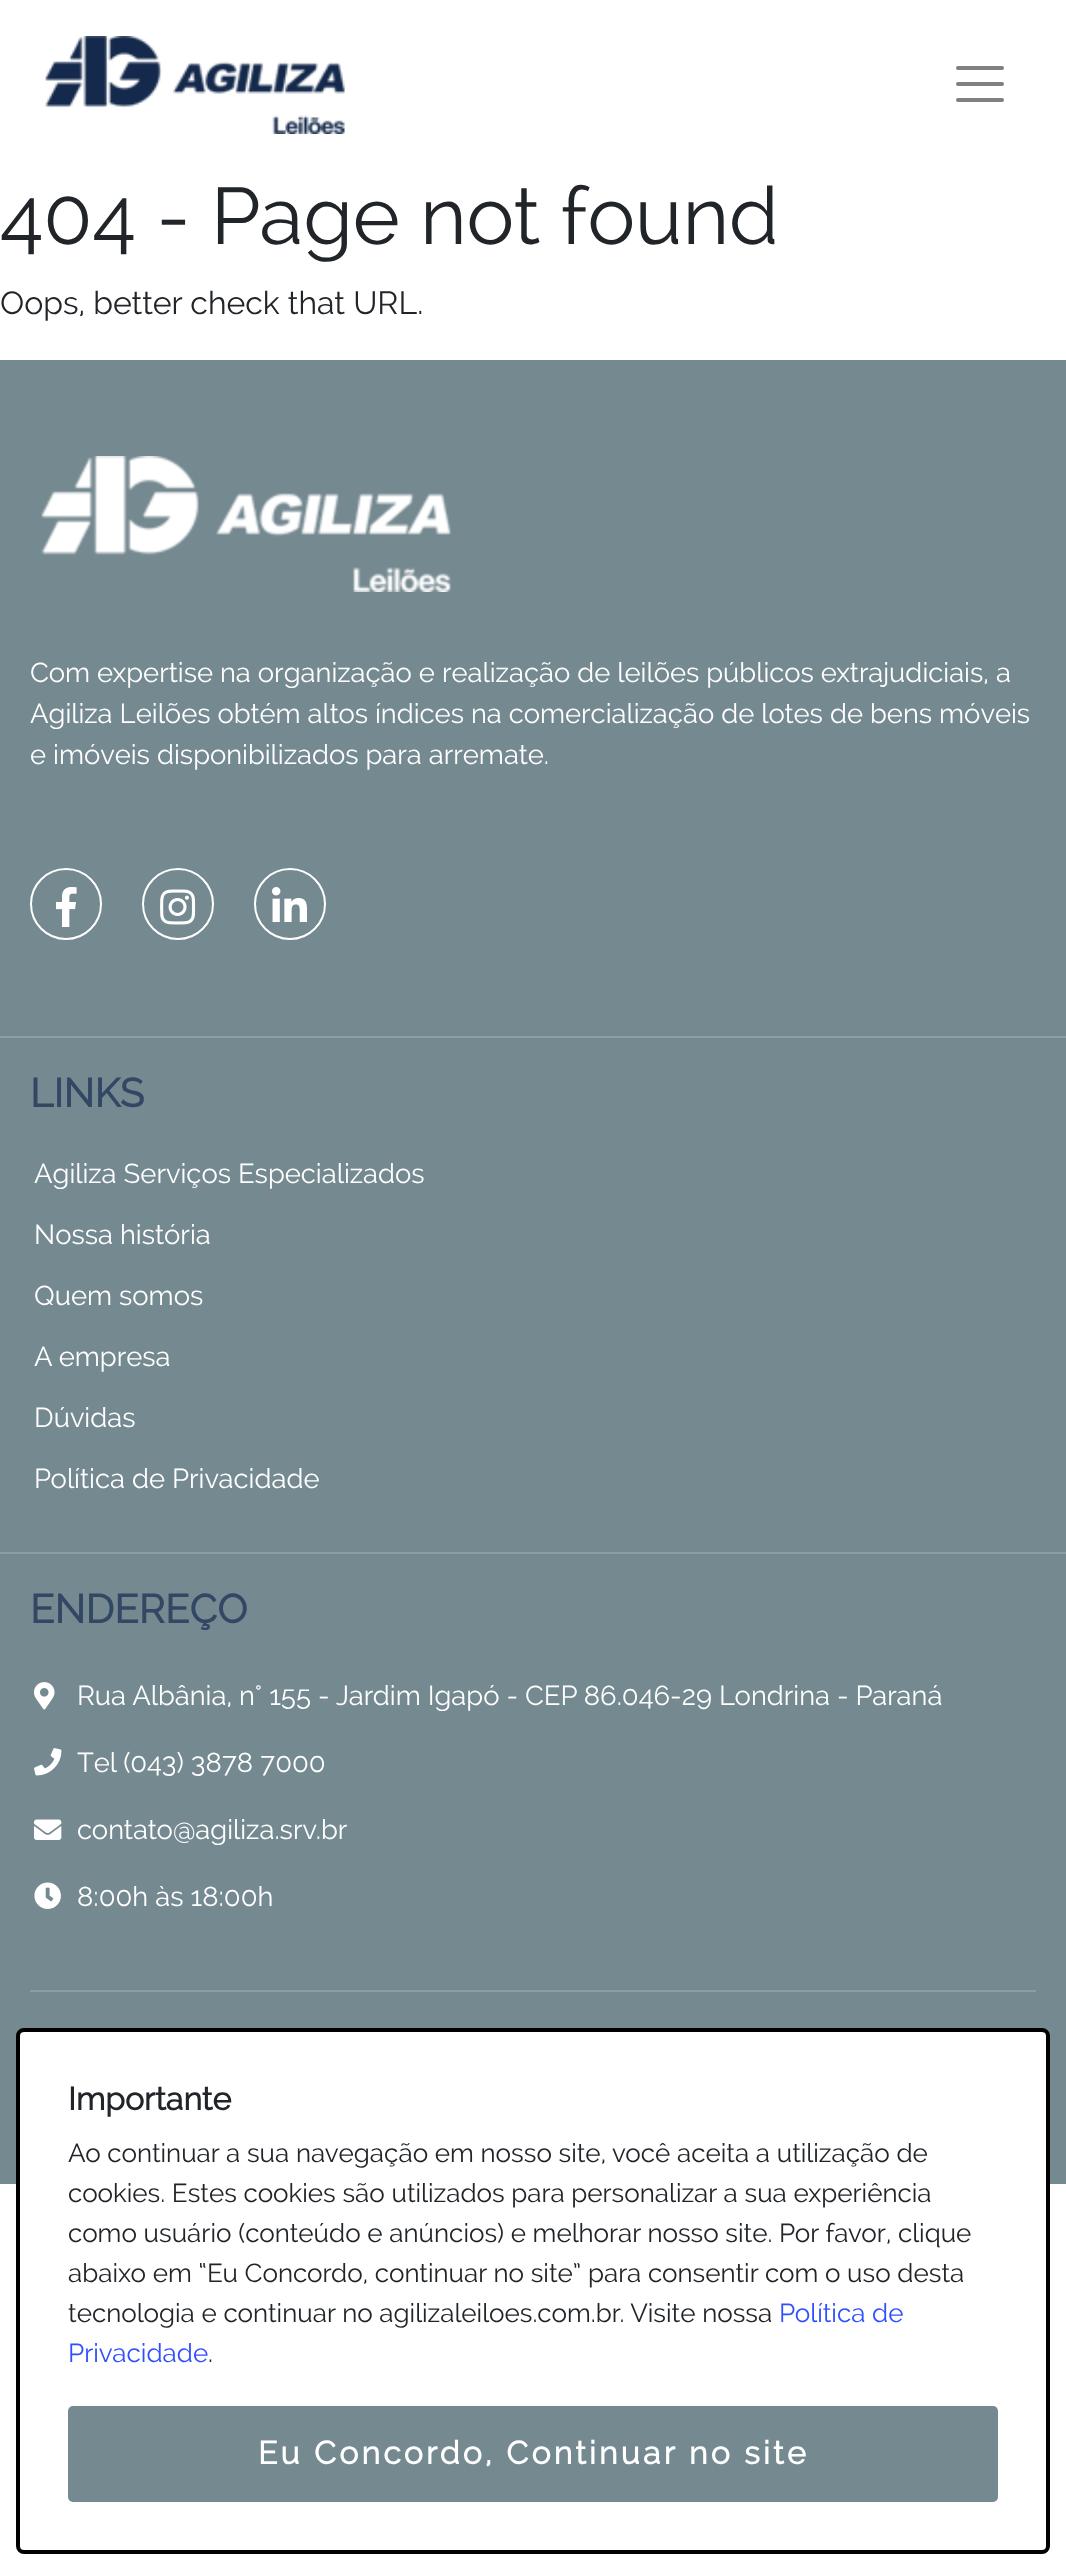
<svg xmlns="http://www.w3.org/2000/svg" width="1066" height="2569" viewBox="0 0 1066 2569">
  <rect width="100%" height="100%" fill="#ffffff"/>
  <image x="45" y="36" width="300" height="98" href="img1.png"/>
  <path d="M958 68H1002M958 84H1002M958 100H1002" fill="none" stroke="#808080" stroke-width="4" stroke-linecap="round"/>
  <text x="0" y="244" font-family="Raleway" font-size="80" fill="#212529">404 - Page not found</text>
  <text x="0" y="314" font-family="Raleway" font-size="32" fill="#212529">Oops, better check that URL.</text>
  <rect x="0" y="360" width="1066" height="1824" fill="#758990"/>
  <rect x="0" y="1036" width="1066" height="2" fill="#8b9ea5"/>
  <image x="41" y="456" width="410" height="136" href="img2.png"/>
  <text x="30" y="682" font-family="Raleway" font-size="27.35" fill="#ffffff">Com expertise na organização e realização de leilões públicos extrajudiciais, a</text>
  <text x="30" y="723" font-family="Raleway" font-size="27.35" fill="#ffffff">Agiliza Leilões obtém altos índices na comercialização de lotes de bens móveis</text>
  <text x="30" y="764" font-family="Raleway" font-size="27.35" fill="#ffffff">e imóveis disponibilizados para arremate.</text>
  <circle cx="66" cy="904" r="35" fill="none" stroke="#ffffff" stroke-width="2"/>
  <image x="56" y="887" width="21" height="40" href="img3.png"/>
  <circle cx="178" cy="904" r="35" fill="none" stroke="#ffffff" stroke-width="2"/>
  <image x="160" y="889" width="36" height="36" href="img4.png"/>
  <circle cx="290" cy="904" r="35" fill="none" stroke="#ffffff" stroke-width="2"/>
  <image x="272" y="887" width="35" height="35" href="img5.png"/>
  <rect x="0" y="1552" width="1066" height="2" fill="#8b9ea5"/>
  <text x="30" y="1107" font-family="Raleway" font-size="40" font-weight="bold" fill="#324764">LINKS</text>
  <text x="34" y="1183" font-family="Raleway" font-size="27.35" fill="#ffffff">Agiliza Serviços Especializados</text>
  <text x="34" y="1244" font-family="Raleway" font-size="27.35" fill="#ffffff">Nossa história</text>
  <text x="34" y="1305" font-family="Raleway" font-size="27.35" fill="#ffffff">Quem somos</text>
  <text x="34" y="1366" font-family="Raleway" font-size="27.35" fill="#ffffff">A empresa</text>
  <text x="34" y="1427" font-family="Raleway" font-size="27.35" fill="#ffffff">Dúvidas</text>
  <text x="34" y="1488" font-family="Raleway" font-size="27.35" fill="#ffffff">Política de Privacidade</text>
  <text x="30" y="1623" font-family="Raleway" font-size="40" font-weight="bold" fill="#324764">ENDEREÇO</text>
  <image x="34" y="1682" width="21" height="28" href="img6.png"/>
  <text x="77" y="1705" font-family="Raleway" font-size="27.35" fill="#ffffff">Rua Albânia, n° 155 - Jardim Igapó - CEP 86.046-29 Londrina - Paraná</text>
  <image x="34" y="1748" width="28" height="28" href="img7.png"/>
  <text x="77" y="1772" font-family="Raleway" font-size="27.35" fill="#ffffff">Tel (043) 3878 7000</text>
  <image x="34" y="1819" width="28" height="21" href="img8.png"/>
  <text x="77" y="1839" font-family="Raleway" font-size="27.35" fill="#ffffff">contato@agiliza.srv.br</text>
  <image x="34" y="1882" width="27" height="27" href="img9.png"/>
  <text x="77" y="1906" font-family="Raleway" font-size="27.35" fill="#ffffff">8:00h às 18:00h</text>
  <rect x="30" y="1990" width="1006" height="2" fill="#8b9ea5"/>
  <rect x="18" y="2030" width="1030" height="522" rx="6" fill="#ffffff" stroke="#000000" stroke-width="4"/>
  <text x="68" y="2110" font-family="Raleway" font-size="32" font-weight="bold" fill="#212529">Importante</text>
  <text x="68" y="2162" font-family="Raleway" font-size="26" fill="#212529">Ao continuar a sua navegação em nosso site, você aceita a utilização de</text>
  <text x="68" y="2202" font-family="Raleway" font-size="26" fill="#212529">cookies. Estes cookies são utilizados para personalizar a sua experiência</text>
  <text x="68" y="2242" font-family="Raleway" font-size="26" fill="#212529">como usuário (conteúdo e anúncios) e melhorar nosso site. Por favor, clique</text>
  <text x="68" y="2282" font-family="Raleway" font-size="26" fill="#212529">abaixo em “Eu Concordo, continuar no site” para consentir com o uso desta</text>
  <text x="68" y="2322" font-family="Raleway" font-size="26" fill="#212529">tecnologia e continuar no agilizaleiloes.com.br. Visite nossa</text>
  <text x="779" y="2322" font-family="Raleway" font-size="26" fill="#304ffe">Política de</text>
  <text x="68" y="2362" font-family="Raleway" font-size="26" fill="#304ffe">Privacidade</text>
  <text x="208" y="2362" font-family="Raleway" font-size="26" fill="#212529">.</text>
  <rect x="68" y="2406" width="930" height="96" rx="5" fill="#758990"/>
  <text x="258" y="2464" font-family="Raleway" font-size="32" font-weight="bold" letter-spacing="3.2" fill="#ffffff">Eu Concordo, Continuar no site</text>
</svg>
